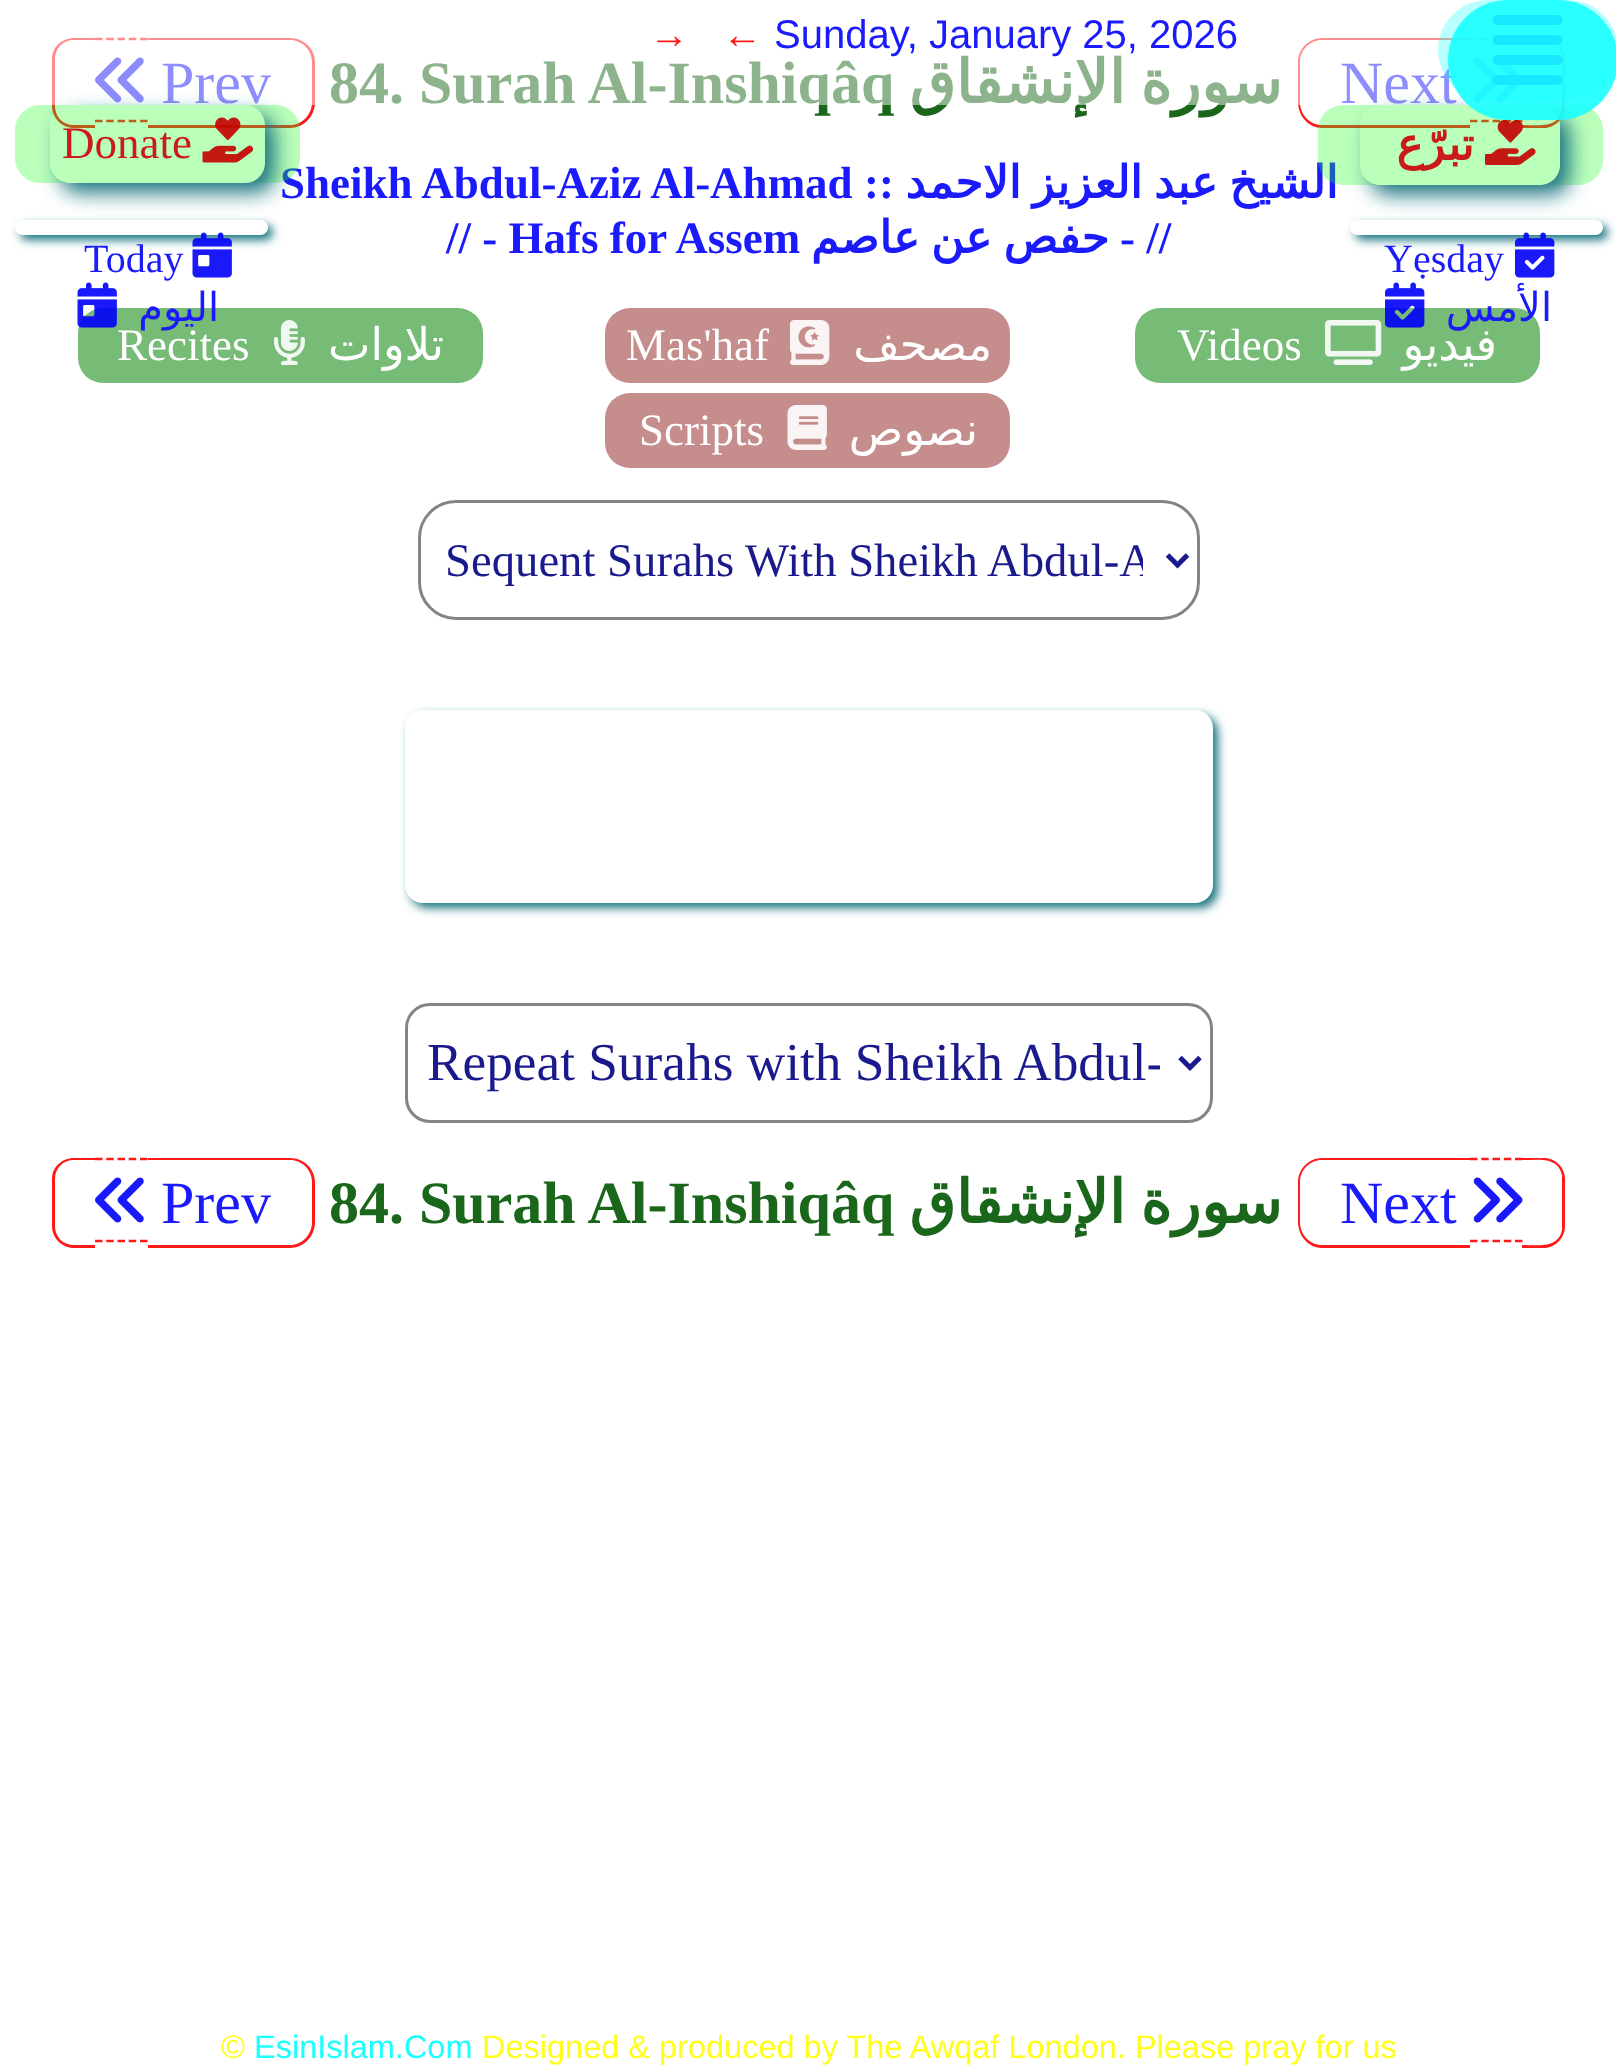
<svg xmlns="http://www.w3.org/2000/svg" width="1616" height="2065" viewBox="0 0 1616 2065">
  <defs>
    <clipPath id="clip1"><path d="M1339 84H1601V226H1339ZM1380 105H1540C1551 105 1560 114 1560 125V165C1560 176 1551 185 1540 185H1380C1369 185 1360 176 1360 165V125C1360 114 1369 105 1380 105Z" clip-rule="evenodd"/></clipPath>
    <filter id="blur1" x="-50%" y="-200%" width="200%" height="500%"><feGaussianBlur stdDeviation="10"/></filter>
    <clipPath id="clip2"><path d="M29 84H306V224H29ZM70 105H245C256 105 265 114 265 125V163C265 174 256 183 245 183H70C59 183 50 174 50 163V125C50 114 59 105 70 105Z" clip-rule="evenodd"/></clipPath>
    <clipPath id="clip3"><path d="M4 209H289V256H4ZM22.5 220H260.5C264.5 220 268 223.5 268 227.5C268 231.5 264.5 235 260.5 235H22.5C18.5 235 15 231.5 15 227.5C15 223.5 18.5 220 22.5 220Z" clip-rule="evenodd"/></clipPath>
    <filter id="blur2" x="-50%" y="-200%" width="200%" height="500%"><feGaussianBlur stdDeviation="5"/></filter>
    <clipPath id="clip4"><path d="M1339 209H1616V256H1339ZM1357.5 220H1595.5C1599.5 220 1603 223.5 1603 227.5C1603 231.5 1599.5 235 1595.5 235H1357.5C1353.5 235 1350 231.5 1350 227.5C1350 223.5 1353.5 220 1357.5 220Z" clip-rule="evenodd"/></clipPath>
    <clipPath id="clip5"><rect x="445" y="533" width="698" height="57"/></clipPath>
    <clipPath id="clip6"><path d="M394 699H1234V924H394ZM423 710H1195C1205 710 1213 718 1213 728V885C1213 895 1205 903 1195 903H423C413 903 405 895 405 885V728C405 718 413 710 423 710Z" clip-rule="evenodd"/></clipPath>
    <clipPath id="clip7"><rect x="428" y="1030" width="732" height="65"/></clipPath>
  </defs>
  <rect width="100%" height="100%" fill="#ffffff"/>
  <path d="M74 38H95V128H74C62 128 52 118 52 106V59C52 47 62 38 74 38ZM74 40H95V125H74C63 125 55 117 55 106V59C55 48 63 40 74 40Z" fill="#ff1a1a" fill-rule="evenodd"/>
  <path d="M95 39H147.5" fill="none" stroke="#ff1a1a" stroke-width="2.5" stroke-dasharray="7.5 3.75"/>
  <path d="M148 38H290C304 38 315 49 315 62V102C315 116 304 128 290 128H148ZM148 40H290C302 40 312 50 312 62V102C312 115 302 125 290 125H148Z" fill="#ff1a1a" fill-rule="evenodd"/>
  <image x="95" y="57" width="49" height="46" href="img8.png"/>
  <text x="161" y="103" font-family="Liberation Serif" font-size="60" fill="#1a1afb">Prev</text>
  <text x="329" y="103" font-family="Liberation Serif" font-size="60" font-weight="bold" fill="#1a661a">84. Surah Al-Inshiqâq</text>
  <text x="1282" y="103" word-spacing="-4" font-family="DejaVu Sans" font-size="60" font-weight="bold" direction="rtl" fill="#1a661a">سورة الإنشقاق</text>
  <path d="M1322 38H1470V128H1322C1309 128 1298 116 1298 102V62C1298 49 1309 38 1322 38ZM1322 40H1470V125H1322C1310 125 1300 115 1300 102V62C1300 50 1310 40 1322 40Z" fill="#ff1a1a" fill-rule="evenodd"/>
  <path d="M1470 39H1522.5" fill="none" stroke="#ff1a1a" stroke-width="2.5" stroke-dasharray="7.5 3.75"/>
  <path d="M1470 121H1522.5" fill="none" stroke="#ff1a1a" stroke-width="2.5" stroke-dasharray="7.5 3.75"/>
  <path d="M1522 38H1544C1555 38 1565 47 1565 59V106C1565 118 1555 128 1544 128H1522ZM1522 40C1537 40 1558 36 1562 55V82V110C1558 129 1537 125 1522 125Z" fill="#ff1a1a" fill-rule="evenodd"/>
  <text x="1340" y="103" font-family="Liberation Serif" font-size="60" fill="#1a1afb">Next</text>
  <image x="1473" y="57" width="50" height="46" href="img9.png"/>
  <rect x="0" y="0" width="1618" height="105" rx="25" fill="#ffffff" fill-opacity="0.5"/>
  <text x="1338" y="198" word-spacing="-3" font-family="DejaVu Sans" font-size="45" font-weight="bold" direction="rtl" fill="#1a1afb">الشيخ عبد العزيز الاحمد</text>
  <rect x="1318" y="105" width="285" height="80" rx="25" fill="#1aff1a" fill-opacity="0.3"/>
  <g clip-path="url(#clip1)">
    <rect x="1370" y="115" width="200" height="80" rx="20" fill="#1a7681" filter="url(#blur1)"/>
  </g>
  <rect x="1438" y="0" width="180" height="100" rx="50" fill="#1affff" fill-opacity="0.3"/>
  <image x="1492" y="15" width="71" height="70" href="img1.png"/>
  <rect x="1448" y="0" width="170" height="120" rx="60" fill="#1affff" fill-opacity="0.9"/>
  <text x="649" y="48" font-family="Liberation Sans" font-size="40" fill="#ff1a1a" xml:space="preserve">→   ←</text>
  <text x="774" y="48" font-family="Liberation Sans" font-size="40" fill="#1a1afb">Sunday, January 25, 2026</text>
  <path d="M95 121H147.5" fill="none" stroke="#ff1a1a" stroke-width="2.5" stroke-dasharray="7.5 3.75"/>
  <text x="280" y="198" font-family="Liberation Serif" font-size="45" font-weight="bold" fill="#1a1afb">Sheikh Abdul-Aziz Al-Ahmad ::</text>
  <rect x="15" y="105" width="285" height="78" rx="25" fill="#1aff1a" fill-opacity="0.3"/>
  <g clip-path="url(#clip2)">
    <rect x="60" y="115" width="215" height="78" rx="20" fill="#1a7681" filter="url(#blur1)"/>
  </g>
  <text x="62" y="158" font-family="Liberation Serif" font-size="45" fill="#ca1a1a">Donate</text>
  <image x="202" y="117" width="52" height="46" href="img2.png"/>
  <text x="1474" y="160" font-family="DejaVu Sans" font-size="45" font-weight="bold" direction="rtl" fill="#ca1a1a">تبرّع</text>
  <image x="1485" y="120" width="51" height="45" href="img3.png"/>
  <g clip-path="url(#clip3)">
    <rect x="20" y="225" width="253" height="15" rx="7.5" fill="#1a7681" filter="url(#blur2)"/>
  </g>
  <text x="84" y="272" font-family="Liberation Serif" font-size="40" fill="#1a1afb">Today</text>
  <image x="192" y="232" width="40" height="46" href="img4.png"/>
  <rect x="78" y="308" width="405" height="75" rx="25" fill="#76bb76"/>
  <image x="77" y="282" width="40" height="46" href="img5.png"/>
  <text x="219" y="321" font-family="DejaVu Sans" font-size="40" direction="rtl" fill="#1a1afb">اليوم</text>
  <g clip-path="url(#clip4)">
    <rect x="1355" y="225" width="253" height="15" rx="7.5" fill="#1a7681" filter="url(#blur2)"/>
  </g>
  <text x="1384" y="272" font-family="Liberation Serif" font-size="40" fill="#1a1afb">Yẹsday</text>
  <image x="1515" y="232" width="40" height="46" href="img6.png"/>
  <rect x="1135" y="308" width="405" height="75" rx="25" fill="#76bb76"/>
  <image x="1385" y="282" width="40" height="46" href="img7.png"/>
  <text x="1552" y="321" font-family="DejaVu Sans" font-size="40" direction="rtl" fill="#1a1afb">الأمس</text>
  <text x="446" y="253" font-family="Liberation Serif" font-size="45" font-weight="bold" fill="#1a1afb">// - Hafs for Assem</text>
  <text x="1109" y="253" word-spacing="-3" font-family="DejaVu Sans" font-size="45" font-weight="bold" direction="rtl" fill="#1a1afb">حفص عن عاصم</text>
  <text x="1120" y="253" font-family="Liberation Serif" font-size="45" font-weight="bold" fill="#1a1afb">- //</text>
  <text x="117" y="360" font-family="Liberation Serif" font-size="45" fill="#ffffff">Recites</text>
  <image x="273" y="320" width="32" height="45" href="img10.png"/>
  <text x="444" y="360" font-family="DejaVu Sans" font-size="45" direction="rtl" fill="#ffffff">تلاوات</text>
  <rect x="605" y="308" width="405" height="75" rx="25" fill="#c68d8d"/>
  <text x="626" y="360" font-family="Liberation Serif" font-size="45" fill="#ffffff">Mas'haf</text>
  <image x="790" y="320" width="40" height="45" href="img11.png"/>
  <text x="992" y="360" font-family="DejaVu Sans" font-size="45" direction="rtl" fill="#ffffff">مصحف</text>
  <text x="1177" y="360" font-family="Liberation Serif" font-size="45" fill="#ffffff">Videos</text>
  <image x="1325" y="320" width="57" height="45" href="img12.png"/>
  <text x="1497" y="360" font-family="DejaVu Sans" font-size="45" direction="rtl" fill="#ffffff">فيديو</text>
  <rect x="605" y="393" width="405" height="75" rx="25" fill="#c68d8d"/>
  <text x="639" y="445" font-family="Liberation Serif" font-size="45" fill="#ffffff">Scripts</text>
  <image x="787" y="405" width="40" height="45" href="img13.png"/>
  <text x="978" y="445" font-family="DejaVu Sans" font-size="45" direction="rtl" fill="#ffffff">نصوص</text>
  <rect x="419.5" y="501.5" width="779" height="117" rx="36.5" fill="none" stroke="#848484" stroke-width="3"/>
  <path d="M1167.5 555L1177.5 565L1187.5 555" fill="none" stroke="#1a1a8d" stroke-width="5"/>
  <g clip-path="url(#clip5)">
    <text x="445" y="576" font-family="Liberation Serif" font-size="46.7" fill="#1a1a8d">Sequent Surahs With Sheikh Abdul-A</text>
  </g>
  <g clip-path="url(#clip6)">
    <rect x="410" y="715" width="808" height="193" rx="18" fill="#1a7681" filter="url(#blur2)"/>
  </g>
  <rect x="406.5" y="1004.5" width="805" height="117" rx="23.5" fill="none" stroke="#848484" stroke-width="3"/>
  <path d="M1180 1057.5L1190 1067.5L1200 1057.5" fill="none" stroke="#1a1a8d" stroke-width="5"/>
  <g clip-path="url(#clip7)">
    <text x="427" y="1080" font-family="Liberation Serif" font-size="53.3" fill="#1a1a8d">Repeat Surahs with Sheikh Abdul-</text>
  </g>
  <path d="M74 1158H95V1248H74C62 1248 52 1238 52 1226V1179C52 1167 62 1158 74 1158ZM74 1160H95V1245H74C63 1245 55 1237 55 1226V1179C55 1168 63 1160 74 1160Z" fill="#ff1a1a" fill-rule="evenodd"/>
  <path d="M95 1159H147.5" fill="none" stroke="#ff1a1a" stroke-width="2.5" stroke-dasharray="7.5 3.75"/>
  <path d="M95 1241H147.5" fill="none" stroke="#ff1a1a" stroke-width="2.5" stroke-dasharray="7.5 3.75"/>
  <path d="M148 1158H290C304 1158 315 1169 315 1182V1222C315 1236 304 1248 290 1248H148ZM148 1160H290C302 1160 312 1170 312 1182V1222C312 1235 302 1245 290 1245H148Z" fill="#ff1a1a" fill-rule="evenodd"/>
  <image x="95" y="1177" width="49" height="46" href="img8.png"/>
  <text x="161" y="1223" font-family="Liberation Serif" font-size="60" fill="#1a1afb">Prev</text>
  <text x="329" y="1223" font-family="Liberation Serif" font-size="60" font-weight="bold" fill="#1a661a">84. Surah Al-Inshiqâq</text>
  <text x="1282" y="1223" word-spacing="-4" font-family="DejaVu Sans" font-size="60" font-weight="bold" direction="rtl" fill="#1a661a">سورة الإنشقاق</text>
  <path d="M1322 1158H1470V1248H1322C1309 1248 1298 1236 1298 1222V1182C1298 1169 1309 1158 1322 1158ZM1322 1160H1470V1245H1322C1310 1245 1300 1235 1300 1222V1182C1300 1170 1310 1160 1322 1160Z" fill="#ff1a1a" fill-rule="evenodd"/>
  <path d="M1470 1159H1522.5" fill="none" stroke="#ff1a1a" stroke-width="2.5" stroke-dasharray="7.5 3.75"/>
  <path d="M1470 1241H1522.5" fill="none" stroke="#ff1a1a" stroke-width="2.5" stroke-dasharray="7.5 3.75"/>
  <path d="M1522 1158H1544C1555 1158 1565 1167 1565 1179V1226C1565 1238 1555 1248 1544 1248H1522ZM1522 1160C1537 1160 1558 1156 1562 1175V1202V1230C1558 1249 1537 1245 1522 1245Z" fill="#ff1a1a" fill-rule="evenodd"/>
  <text x="1340" y="1223" font-family="Liberation Serif" font-size="60" fill="#1a1afb">Next</text>
  <image x="1473" y="1177" width="50" height="46" href="img9.png"/>
  <text x="221" y="2058" font-family="Liberation Sans" font-size="32.5" fill="#ffff1a">©</text>
  <text x="254" y="2058" font-family="Liberation Sans" font-size="32.5" fill="#1affff">EsinIslam.Com</text>
  <text x="482" y="2058" font-family="Liberation Sans" font-size="32.5" fill="#ffff1a">Designed &amp; produced by The Awqaf London. Please pray for us</text>
</svg>
